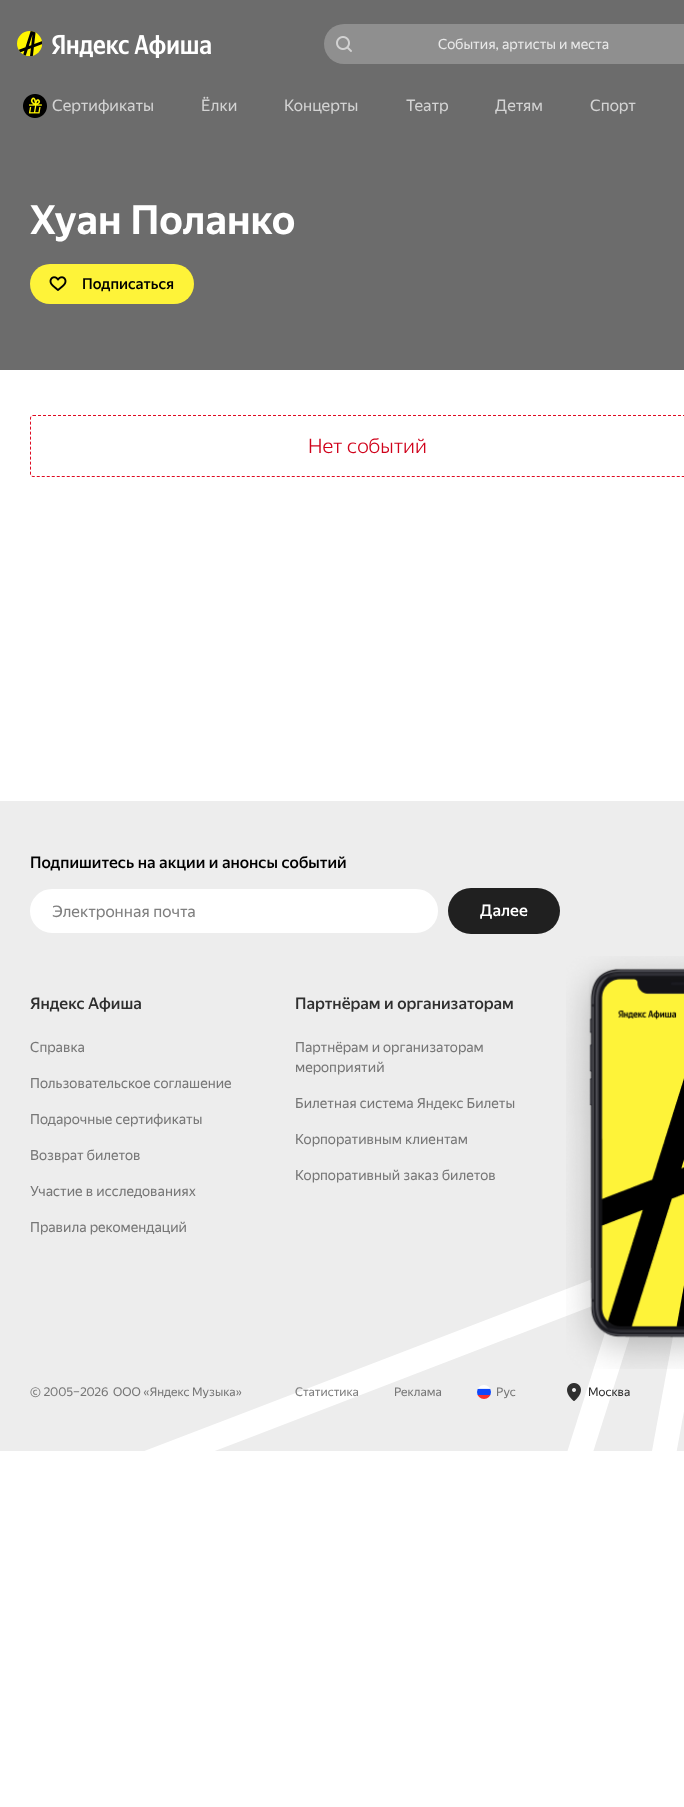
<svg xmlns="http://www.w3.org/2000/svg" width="684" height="1807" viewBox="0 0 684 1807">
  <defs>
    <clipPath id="clip1"><rect x="100" y="801" width="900" height="650"/></clipPath>
    <clipPath id="clip2"><rect x="549" y="801" width="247" height="650"/></clipPath>
  </defs>
  <rect width="100%" height="100%" fill="#ffffff"/>
  <rect x="0" y="0" width="684" height="370" fill="#6c6c6c"/>
  <image x="17" y="31" width="26" height="26" href="img1.png"/>
  <image x="52" y="34" width="159" height="24" href="img2.png"/>
  <image x="336" y="36" width="16" height="16" href="img3.png"/>
  <text x="438" y="49" font-family="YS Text" font-size="14" fill="#e2e2e2">События, артисты и места</text>
  <rect x="324" y="24" width="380" height="40" rx="20" fill="#ffffff" fill-opacity="0.24"/>
  <image x="23" y="94" width="24" height="24" href="img4.png"/>
  <text x="52" y="111" font-family="YS Text" font-size="16" fill="#d3d3d3">Сертификаты</text>
  <text x="201" y="111" font-family="YS Text" font-size="16" fill="#d3d3d3">Ёлки</text>
  <text x="284" y="111" font-family="YS Text" font-size="16" fill="#d3d3d3">Концерты</text>
  <text x="406" y="111" font-family="YS Text" font-size="16" fill="#d3d3d3">Театр</text>
  <text x="495" y="111" font-family="YS Text" font-size="16" fill="#d3d3d3">Детям</text>
  <text x="590" y="111" font-family="YS Text" font-size="16" fill="#d3d3d3">Спорт</text>
  <text x="30" y="234" font-family="YS Text" font-size="40" font-weight="bold" fill="#ffffff">Хуан Поланко</text>
  <rect x="30" y="264" width="164" height="40" rx="20" fill="#fef339"/>
  <image x="49" y="276" width="18" height="15" href="img5.png"/>
  <text x="82" y="289" font-family="YS Text" font-size="15" font-weight="500" fill="#000000">Подписаться</text>
  <path d="M33 415.5H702C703.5 415.5 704.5 416.5 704.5 418V474C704.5 475.5 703.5 476.5 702 476.5H33C31.5 476.5 30.5 475.5 30.5 474V418C30.5 416.5 31.5 415.5 33 415.5Z" fill="none" stroke="#df0b22" stroke-dasharray="3 2"/>
  <text x="308" y="453" font-family="YS Text" font-size="20" font-weight="300" fill="#d0021b">Нет событий</text>
  <rect x="0" y="801" width="684" height="650" fill="#ededed"/>
  <text x="30" y="868" font-family="YS Text" font-size="16" font-weight="500" fill="#000000">Подпишитесь на акции и анонсы событий</text>
  <rect x="31" y="890" width="406" height="42" rx="21" fill="#ffffff" stroke="#ffffff" stroke-width="2"/>
  <text x="52" y="917" font-family="YS Text" font-size="16" fill="#7f7f7f">Электронная почта</text>
  <rect x="448" y="888" width="112" height="46" rx="23" fill="#202020"/>
  <text x="480" y="916" font-family="YS Text" font-size="16" font-weight="500" fill="#ffffff">Далее</text>
  <text x="30" y="1009" font-family="YS Text" font-size="16" font-weight="500" fill="#2f2f2f">Яндекс Афиша</text>
  <text x="30" y="1052" font-family="YS Text" font-size="14" fill="#777777">Справка</text>
  <text x="30" y="1088" font-family="YS Text" font-size="14" fill="#777777">Пользовательское соглашение</text>
  <text x="30" y="1124" font-family="YS Text" font-size="14" fill="#777777">Подарочные сертификаты</text>
  <text x="30" y="1160" font-family="YS Text" font-size="14" fill="#777777">Возврат билетов</text>
  <text x="30" y="1196" font-family="YS Text" font-size="14" fill="#777777">Участие в исследованиях</text>
  <text x="30" y="1232" font-family="YS Text" font-size="14" fill="#777777">Правила рекомендаций</text>
  <text x="295" y="1009" font-family="YS Text" font-size="16" font-weight="500" fill="#2f2f2f">Партнёрам и организаторам</text>
  <text x="295" y="1052" font-family="YS Text" font-size="14" fill="#777777">Партнёрам и организаторам</text>
  <text x="295" y="1072" font-family="YS Text" font-size="14" fill="#777777">мероприятий</text>
  <text x="295" y="1108" font-family="YS Text" font-size="14" fill="#777777">Билетная система Яндекс Билеты</text>
  <text x="295" y="1144" font-family="YS Text" font-size="14" fill="#777777">Корпоративным клиентам</text>
  <text x="295" y="1180" font-family="YS Text" font-size="14" fill="#777777">Корпоративный заказ билетов</text>
  <text x="30" y="1396" font-family="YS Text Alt" font-size="12" fill="#777777">© 2005–2026</text>
  <g clip-path="url(#clip1)">
    <path d="M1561 934L108 1492L100 1468L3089 321L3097 345Z" fill="#ffffff" fill-rule="evenodd"/>
  </g>
  <text x="113" y="1396" font-family="YS Text" font-size="12" fill="#777777">ООО «Яндекс Музыка»</text>
  <text x="295" y="1396" font-family="YS Text" font-size="12" fill="#7f7f7f">Статистика</text>
  <text x="394" y="1396" font-family="YS Text" font-size="12" fill="#777777">Реклама</text>
  <image x="477" y="1385" width="14" height="14" href="img6.png"/>
  <text x="496" y="1396" font-family="YS Text" font-size="12" fill="#777777">Рус</text>
  <g clip-path="url(#clip2)">
    <path d="M630 1571L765 835L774 800H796L654 1575Z" fill="#ffffff" fill-rule="evenodd"/>
    <path d="M523 1591L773 804H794L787 842L547 1597Z" fill="#ffffff" fill-rule="evenodd"/>
  </g>
  <image x="567" y="1383" width="14" height="18" href="img7.png"/>
  <text x="588" y="1396" font-family="YS Text" font-size="12" fill="#2f2f2f">Москва</text>
  <image x="566" y="956" width="118" height="413" href="img8.png"/>
</svg>
